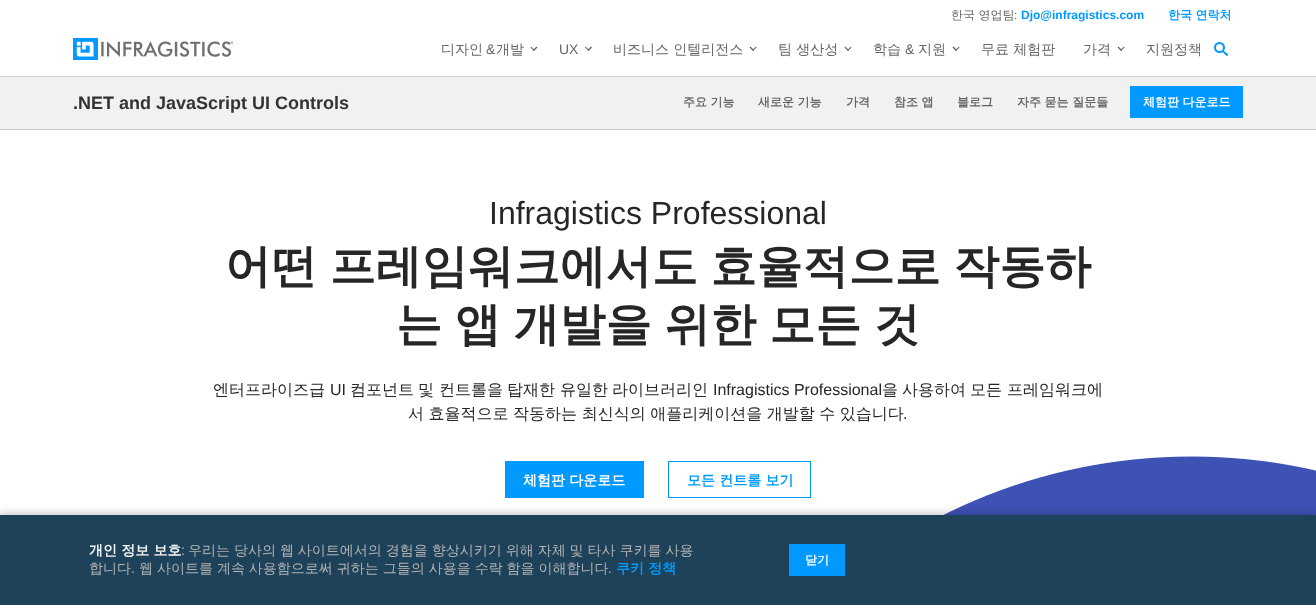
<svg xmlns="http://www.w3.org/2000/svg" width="1316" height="605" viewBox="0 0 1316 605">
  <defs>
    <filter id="blur1" x="-50%" y="-200%" width="200%" height="500%"><feGaussianBlur stdDeviation="5"/></filter>
  </defs>
  <rect width="100%" height="100%" fill="#ffffff"/>
  <rect x="0" y="76" width="1316" height="1" fill="#cccccc"/>
  <text x="951" y="19" font-family="WenQuanYi Zen Hei" font-size="12" font-weight="500" fill="#666666">한국 영업팀</text>
  <text x="1014" y="19" font-family="Liberation Sans" font-size="12" fill="#666666">:</text>
  <text x="1021" y="19" font-family="Liberation Sans" font-size="12" font-weight="bold" fill="#0099ff">Djo@infragistics.com</text>
  <text x="1168" y="19" font-family="WenQuanYi Zen Hei" font-size="12" font-weight="bold" fill="#0099ff">한국 연락처</text>
  <image x="73" y="38" width="160" height="22" href="img1.png"/>
  <text x="441" y="54" font-family="WenQuanYi Zen Hei" font-size="14" font-weight="500" fill="#666666">디자인</text>
  <text x="486" y="54" font-family="Liberation Sans" font-size="14" fill="#666666">&amp;</text>
  <text x="496" y="54" font-family="WenQuanYi Zen Hei" font-size="14" font-weight="500" fill="#666666">개발</text>
  <path d="M534 51L530.5 47.5L531 46.5L534.5 50Z" fill="#666666"/>
  <path d="M534 51L533 50L536.5 46.5L537.5 47.5Z" fill="#666666"/>
  <text x="559" y="54" font-family="Liberation Sans" font-size="14" fill="#666666">UX</text>
  <path d="M588.5 51L585 47.5L585.5 46.5L589 50Z" fill="#666666"/>
  <path d="M588.5 51L587.5 50L591 46.5L592 47.5Z" fill="#666666"/>
  <text x="613" y="54" font-family="WenQuanYi Zen Hei" font-size="14" font-weight="500" fill="#666666">비즈니스 인텔리전스</text>
  <path d="M753 51L749.5 47.5L750.5 46.5L754 50Z" fill="#666666"/>
  <path d="M753 51L752.5 50L756 46.5L756.5 47.5Z" fill="#666666"/>
  <text x="778" y="54" font-family="WenQuanYi Zen Hei" font-size="14" font-weight="500" fill="#666666">팀 생산성</text>
  <path d="M848 51L844.5 47.5L845 46.5L849 50Z" fill="#666666"/>
  <path d="M848 51L847.5 50L851 46.5L851.5 47.5Z" fill="#666666"/>
  <text x="873" y="54" font-family="WenQuanYi Zen Hei" font-size="14" font-weight="500" fill="#666666">학습</text>
  <text x="905" y="54" font-family="Liberation Sans" font-size="14" fill="#666666">&amp;</text>
  <text x="918" y="54" font-family="WenQuanYi Zen Hei" font-size="14" font-weight="500" fill="#666666">지원</text>
  <path d="M956 51L952.5 47.5L953.5 46.5L957 50Z" fill="#666666"/>
  <path d="M956 51L955.5 50L959 46.5L959.5 47.5Z" fill="#666666"/>
  <text x="981" y="54" font-family="WenQuanYi Zen Hei" font-size="14" font-weight="500" fill="#666666">무료 체험판</text>
  <text x="1083" y="54" font-family="WenQuanYi Zen Hei" font-size="14" font-weight="500" fill="#666666">가격</text>
  <path d="M1121 51L1117.5 47.5L1118.5 46.5L1122 50Z" fill="#666666"/>
  <path d="M1121 51L1120.5 50L1124 46.5L1124.5 47.5Z" fill="#666666"/>
  <text x="1146" y="54" font-family="WenQuanYi Zen Hei" font-size="14" font-weight="500" fill="#666666">지원정책</text>
  <path d="M1218.5 45L1224.5 51.5C1225.5 52 1229 54.5 1228 55.5C1227 57 1225.5 54.5 1225 54.5L1217 46.5C1216.5 45.5 1218 44.5 1218.5 45Z" fill="#0099ff"/>
  <circle cx="1219.5" cy="47.5" r="4.5" fill="#ffffff" stroke="#0099ff" stroke-width="2"/>
  <rect x="0" y="77" width="1316" height="52" fill="#f1f1f1"/>
  <rect x="0" y="129" width="1316" height="1" fill="#cccccc"/>
  <text x="73" y="109" font-family="Liberation Sans" font-size="18" font-weight="bold" fill="#333333">.NET and JavaScript UI Controls</text>
  <text x="683" y="106" font-family="WenQuanYi Zen Hei" font-size="12" font-weight="bold" fill="#666666">주요 기능</text>
  <text x="758" y="106" font-family="WenQuanYi Zen Hei" font-size="12" font-weight="bold" fill="#666666">새로운 기능</text>
  <text x="846" y="106" font-family="WenQuanYi Zen Hei" font-size="12" font-weight="bold" fill="#666666">가격</text>
  <text x="894" y="106" font-family="WenQuanYi Zen Hei" font-size="12" font-weight="bold" fill="#666666">참조 앱</text>
  <text x="957" y="106" font-family="WenQuanYi Zen Hei" font-size="12" font-weight="bold" fill="#666666">블로그</text>
  <text x="1017" y="106" font-family="WenQuanYi Zen Hei" font-size="12" font-weight="bold" fill="#666666">자주 묻는 질문들</text>
  <rect x="1130" y="86" width="113" height="32" fill="#0099ff"/>
  <text x="1143" y="106" font-family="WenQuanYi Zen Hei" font-size="12" font-weight="bold" fill="#ffffff">체험판 다운로드</text>
  <text x="489" y="224" font-family="Liberation Sans" font-size="32" fill="#262626">Infragistics Professional</text>
  <text x="225" y="282" word-spacing="-1" font-family="WenQuanYi Zen Hei" font-size="46" font-weight="bold" fill="#262626">어떤 프레임워크에서도 효율적으로 작동하</text>
  <text x="396" y="340" word-spacing="-1" font-family="WenQuanYi Zen Hei" font-size="46" font-weight="bold" fill="#262626">는 앱 개발을 위한 모든 것</text>
  <text x="213" y="395" font-family="WenQuanYi Zen Hei" font-size="16" font-weight="500" fill="#262626">엔터프라이즈급</text>
  <text x="330" y="395" font-family="Liberation Sans" font-size="16" fill="#262626">UI</text>
  <text x="350" y="395" font-family="WenQuanYi Zen Hei" font-size="16" font-weight="500" fill="#262626">컴포넌트</text>
  <text x="418" y="395" font-family="WenQuanYi Zen Hei" font-size="16" font-weight="500" fill="#262626">및</text>
  <text x="439" y="395" font-family="WenQuanYi Zen Hei" font-size="16" font-weight="500" fill="#262626">컨트롤을</text>
  <text x="507" y="395" font-family="WenQuanYi Zen Hei" font-size="16" font-weight="500" fill="#262626">탑재한</text>
  <text x="560" y="395" font-family="WenQuanYi Zen Hei" font-size="16" font-weight="500" fill="#262626">유일한</text>
  <text x="612" y="395" font-family="WenQuanYi Zen Hei" font-size="16" font-weight="500" fill="#262626">라이브러리인</text>
  <text x="713" y="395" font-family="Liberation Sans" font-size="16" fill="#262626">Infragistics Professional</text>
  <text x="882" y="395" font-family="WenQuanYi Zen Hei" font-size="16" font-weight="500" fill="#262626">을</text>
  <text x="902" y="395" font-family="WenQuanYi Zen Hei" font-size="16" font-weight="500" fill="#262626">사용하여</text>
  <text x="970" y="395" font-family="WenQuanYi Zen Hei" font-size="16" font-weight="500" fill="#262626">모든</text>
  <text x="1007" y="395" font-family="WenQuanYi Zen Hei" font-size="16" font-weight="500" fill="#262626">프레임워크에</text>
  <text x="408" y="419" word-spacing="-0.25" font-family="WenQuanYi Zen Hei" font-size="16" font-weight="500" fill="#262626">서 효율적으로 작동하는 최신식의 애플리케이션을 개발할 수 있습니다</text>
  <text x="903" y="419" font-family="Liberation Sans" font-size="16" fill="#262626">.</text>
  <rect x="505" y="461" width="139" height="37" fill="#0099ff"/>
  <text x="523" y="485" font-family="WenQuanYi Zen Hei" font-size="14" font-weight="bold" fill="#ffffff">체험판 다운로드</text>
  <rect x="668.5" y="461.5" width="142" height="36" fill="none" stroke="#0099ff"/>
  <text x="687" y="485" font-family="WenQuanYi Zen Hei" font-size="14" font-weight="bold" fill="#0099ff">모든 컨트롤 보기</text>
  <image x="943" y="456" width="373" height="59" href="img2.png"/>
  <rect x="-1" y="514" width="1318" height="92" fill="#000000" fill-opacity="0.25" filter="url(#blur1)"/>
  <rect x="0" y="515" width="1316" height="90" fill="#1e425a"/>
  <text x="89" y="555" font-family="WenQuanYi Zen Hei" font-size="14" font-weight="bold" fill="#f7f7f7">개인 정보 보호</text>
  <text x="181" y="555" font-family="Liberation Sans" font-size="14" fill="#b4b4b4">:</text>
  <text x="188" y="555" word-spacing="-0.25" font-family="WenQuanYi Zen Hei" font-size="14" font-weight="500" fill="#b4b4b4">우리는 당사의 웹 사이트에서의 경험을 향상시키기 위해 자체 및 타사 쿠키를 사용</text>
  <text x="89" y="573" font-family="WenQuanYi Zen Hei" font-size="14" font-weight="500" fill="#b4b4b4">합니다</text>
  <text x="131" y="573" font-family="Liberation Sans" font-size="14" fill="#b4b4b4">.</text>
  <text x="139" y="573" word-spacing="-0.25" font-family="WenQuanYi Zen Hei" font-size="14" font-weight="500" fill="#b4b4b4">웹 사이트를 계속 사용함으로써 귀하는 그들의 사용을 수락 함을 이해합니다</text>
  <text x="608" y="573" font-family="Liberation Sans" font-size="14" fill="#b4b4b4">.</text>
  <text x="616" y="573" font-family="WenQuanYi Zen Hei" font-size="14" font-weight="bold" fill="#0099ff">쿠키 정책</text>
  <rect x="789" y="544" width="56" height="32" fill="#0099ff"/>
  <text x="805" y="564" font-family="WenQuanYi Zen Hei" font-size="12" font-weight="bold" fill="#ffffff">닫기</text>
</svg>
